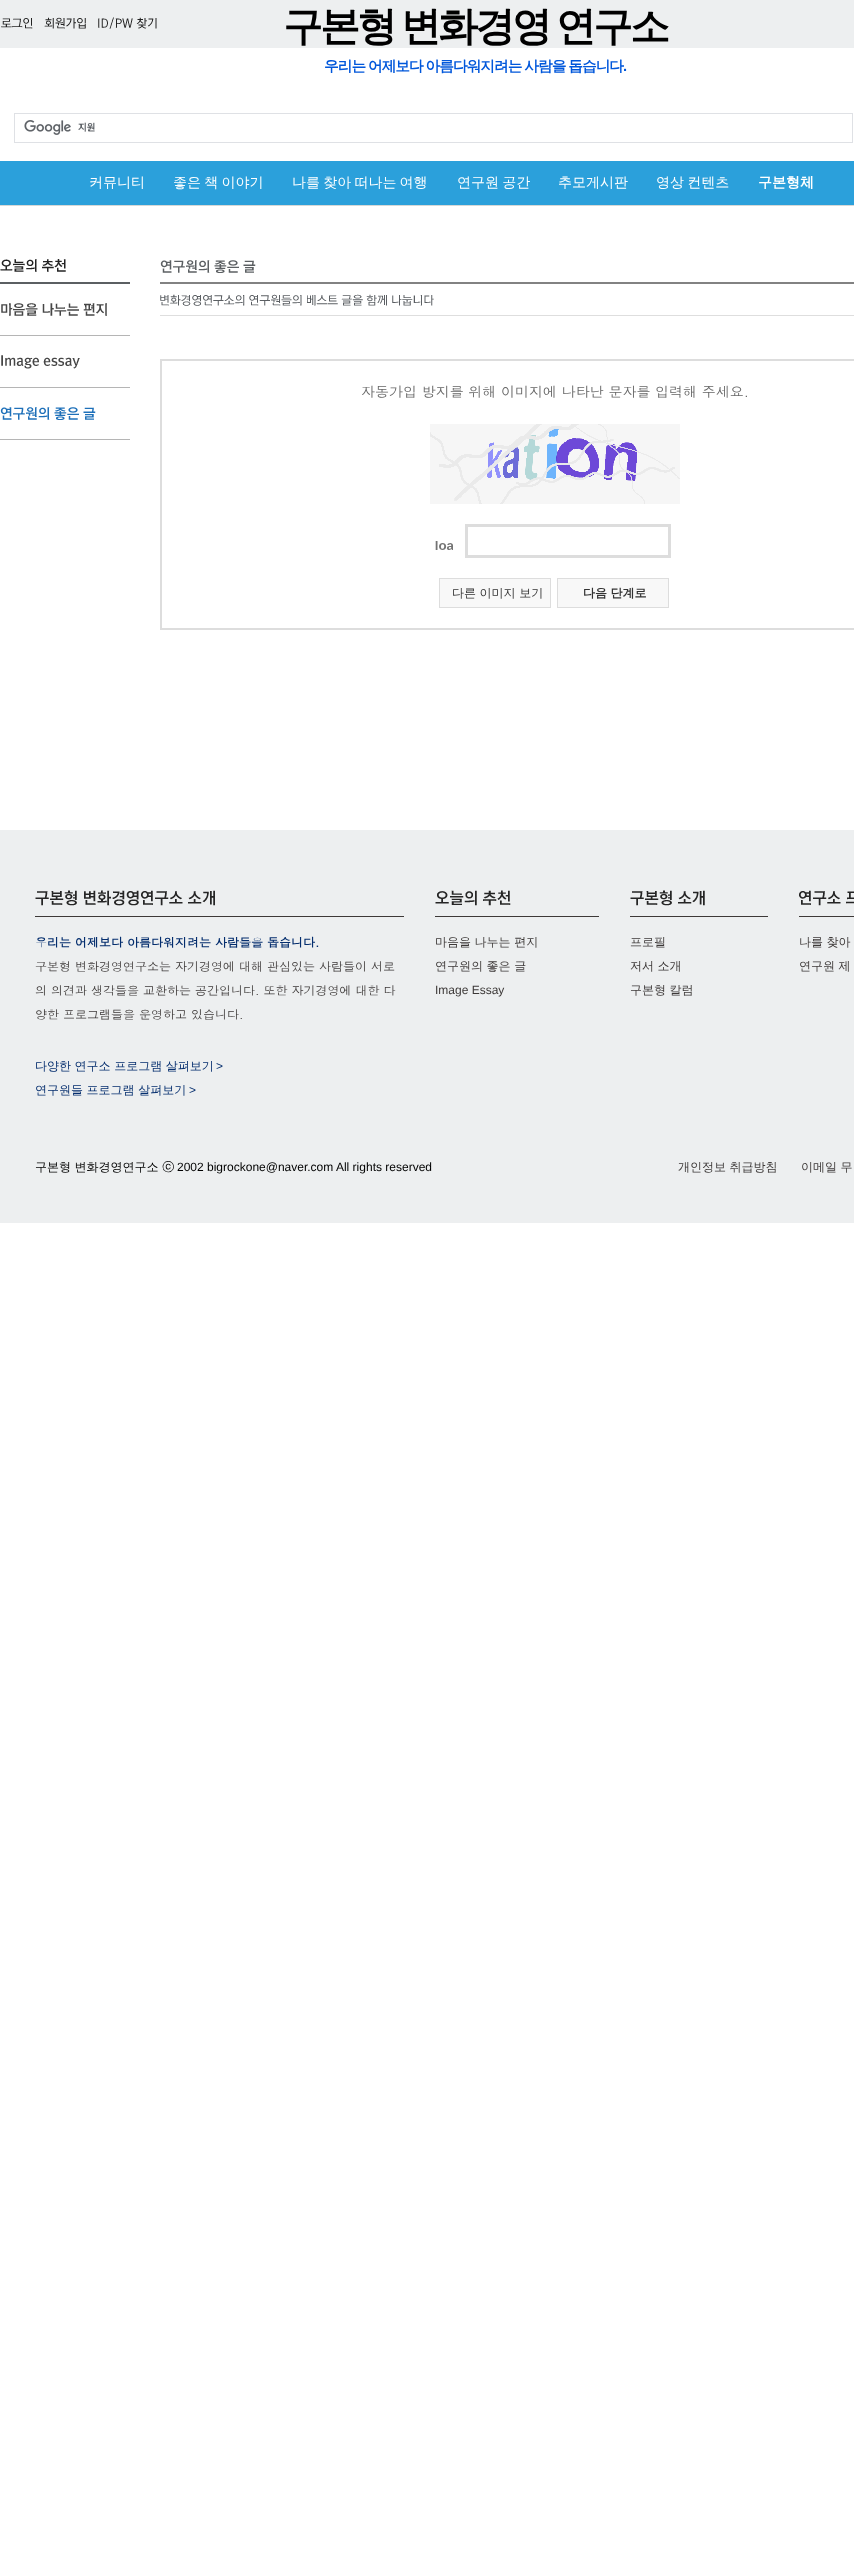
<svg xmlns="http://www.w3.org/2000/svg" width="854" height="2573" viewBox="0 0 854 2573">
  <rect width="100%" height="100%" fill="#ffffff"/>
  <rect x="0" y="0" width="854" height="48" fill="#edeff0"/>
  <rect x="0" y="205" width="854" height="1" fill="#d6d8d7"/>
  <image x="1" y="18" width="32" height="11" href="img1.png"/>
  <image x="44" y="17" width="42" height="12" href="img2.png"/>
  <image x="98" y="17" width="59" height="12" href="img3.png"/>
  <text x="283" y="40" word-spacing="-2" font-family="WenQuanYi Zen Hei" font-size="40" font-weight="bold" letter-spacing="-3" fill="#000000">구본형 변화경영 연구소</text>
  <text x="324" y="71" word-spacing="-0.5" font-family="WenQuanYi Zen Hei" font-size="14.7" font-weight="bold" letter-spacing="-1" fill="#0057db">우리는 어제보다 아름다워지려는 사람을 돕습니다</text>
  <text x="623" y="71" font-family="Liberation Sans" font-size="14.7" font-weight="bold" letter-spacing="-1" fill="#0057db">.</text>
  <rect x="14.5" y="113.5" width="838" height="29" fill="none" stroke="#dfe1e5"/>
  <image x="24" y="120" width="71" height="15" href="img4.png"/>
  <rect x="0" y="161" width="854" height="44" fill="#2ba0db"/>
  <text x="89" y="187" font-family="WenQuanYi Zen Hei" font-size="14" font-weight="500" fill="#ffffff">커뮤니티</text>
  <text x="173" y="187" word-spacing="-1" font-family="WenQuanYi Zen Hei" font-size="14" font-weight="500" fill="#ffffff">좋은 책 이야기</text>
  <text x="292" y="187" word-spacing="-1" font-family="WenQuanYi Zen Hei" font-size="14" font-weight="500" fill="#ffffff">나를 찾아 떠나는 여행</text>
  <text x="457" y="187" word-spacing="-1" font-family="WenQuanYi Zen Hei" font-size="14" font-weight="500" fill="#ffffff">연구원 공간</text>
  <text x="558" y="187" font-family="WenQuanYi Zen Hei" font-size="14" font-weight="500" fill="#ffffff">추모게시판</text>
  <text x="656" y="187" word-spacing="-1" font-family="WenQuanYi Zen Hei" font-size="14" font-weight="500" fill="#ffffff">영상 컨텐츠</text>
  <text x="758" y="187" font-family="WenQuanYi Zen Hei" font-size="14" font-weight="bold" fill="#ffffff">구본형체</text>
  <rect x="0" y="282" width="130" height="2" fill="#5b5f62"/>
  <image x="0" y="259" width="66" height="13" href="img5.png"/>
  <rect x="0" y="439" width="130" height="1" fill="#b5b5b5"/>
  <image x="1" y="303" width="106" height="13" href="img6.png"/>
  <rect x="0" y="335" width="130" height="1" fill="#b5b5b5"/>
  <image x="1" y="355" width="79" height="14" href="img7.png"/>
  <rect x="0" y="387" width="130" height="1" fill="#b5b5b5"/>
  <image x="0" y="407" width="96" height="13" href="img8.png"/>
  <rect x="160" y="282" width="694" height="2" fill="#828282"/>
  <image x="160" y="260" width="96" height="13" href="img9.png"/>
  <rect x="160" y="315" width="694" height="1" fill="#dedede"/>
  <image x="160" y="294" width="274" height="12" href="img10.png"/>
  <rect x="161" y="360" width="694" height="269" fill="none" stroke="#dddddd" stroke-width="2"/>
  <text x="361" y="397" font-family="Dotum" font-size="14" fill="#666666">자동가입 방지를 위해 이미지에 나타난 문자를 입력해 주세요.</text>
  <image x="430" y="424" width="250" height="80" href="img11.png"/>
  <image x="435" y="541" width="18" height="9" href="img12.png"/>
  <rect x="466.5" y="525.5" width="203" height="31" fill="none" stroke="#dddddd" stroke-width="3"/>
  <rect x="439.5" y="578.5" width="111" height="29" fill="#f8f8f8" stroke="#dddddd"/>
  <text x="452" y="597" font-family="WenQuanYi Zen Hei" font-size="12" font-weight="500" fill="#333333">다른 이미지 보기</text>
  <rect x="557.5" y="578.5" width="111" height="29" fill="#f8f8f8" stroke="#dddddd"/>
  <text x="583" y="597" font-family="WenQuanYi Zen Hei" font-size="12" font-weight="bold" fill="#333333">다음 단계로</text>
  <rect x="0" y="830" width="854" height="393" fill="#edeff0"/>
  <rect x="35" y="916" width="369" height="1" fill="#3d3938"/>
  <image x="35" y="890" width="180" height="16" href="img13.png"/>
  <text x="35" y="947" font-family="Dotum" font-size="12" font-weight="bold" fill="#052e6e">우리는 어제보다 아름다워지려는 사람들을 돕습니다.</text>
  <text x="35" y="971" font-family="Dotum" font-size="12" fill="#3d3938">구본형 변화경영연구소는 자기경영에 대해 관심있는 사람들이 서로</text>
  <text x="35" y="995" font-family="Dotum" font-size="12" fill="#3d3938">의 의견과 생각들을 교환하는 공간입니다. 또한 자기경영에 대한 다</text>
  <text x="35" y="1019" font-family="Dotum" font-size="12" fill="#3d3938">양한 프로그램들을 운영하고 있습니다.</text>
  <text x="35" y="1070" font-family="WenQuanYi Zen Hei" font-size="12" font-weight="500" fill="#052e6e">다양한 연구소 프로그램 살펴보기</text>
  <text x="216" y="1070" font-family="Liberation Sans" font-size="12" fill="#052e6e">&gt;</text>
  <text x="35" y="1094" font-family="WenQuanYi Zen Hei" font-size="12" font-weight="500" fill="#052e6e">연구원들 프로그램 살펴보기</text>
  <text x="189" y="1094" font-family="Liberation Sans" font-size="12" fill="#052e6e">&gt;</text>
  <rect x="435" y="916" width="164" height="1" fill="#3d3938"/>
  <image x="435" y="890" width="76" height="16" href="img14.png"/>
  <text x="435" y="946" font-family="WenQuanYi Zen Hei" font-size="12" font-weight="500" fill="#3d3938">마음을 나누는 편지</text>
  <text x="435" y="970" font-family="WenQuanYi Zen Hei" font-size="12" font-weight="500" fill="#3d3938">연구원의 좋은 글</text>
  <text x="435" y="994" font-family="Liberation Sans" font-size="12" fill="#3d3938">Image Essay</text>
  <rect x="630" y="916" width="138" height="1" fill="#3d3938"/>
  <image x="630" y="890" width="75" height="16" href="img15.png"/>
  <text x="630" y="946" font-family="WenQuanYi Zen Hei" font-size="12" font-weight="500" fill="#3d3938">프로필</text>
  <text x="630" y="970" font-family="WenQuanYi Zen Hei" font-size="12" font-weight="500" fill="#3d3938">저서 소개</text>
  <text x="630" y="994" font-family="WenQuanYi Zen Hei" font-size="12" font-weight="500" fill="#3d3938">구본형 칼럼</text>
  <rect x="799" y="916" width="55" height="1" fill="#3d3938"/>
  <image x="799" y="890" width="55" height="16" href="img16.png"/>
  <text x="799" y="946" font-family="WenQuanYi Zen Hei" font-size="12" font-weight="500" fill="#3d3938">나를 찾아</text>
  <text x="799" y="970" font-family="WenQuanYi Zen Hei" font-size="12" font-weight="500" fill="#3d3938">연구원 제</text>
  <text x="35" y="1171" font-family="WenQuanYi Zen Hei" font-size="12" font-weight="500" fill="#000000">구본형 변화경영연구소 ⓒ</text>
  <text x="177" y="1171" font-family="Liberation Sans" font-size="12" fill="#000000">2002 bigrockone@naver.com All rights reserved</text>
  <text x="678" y="1171" font-family="WenQuanYi Zen Hei" font-size="12" font-weight="500" fill="#3d3938">개인정보 취급방침</text>
  <text x="801" y="1171" font-family="WenQuanYi Zen Hei" font-size="12" font-weight="500" fill="#3d3938">이메일 무</text>
</svg>
